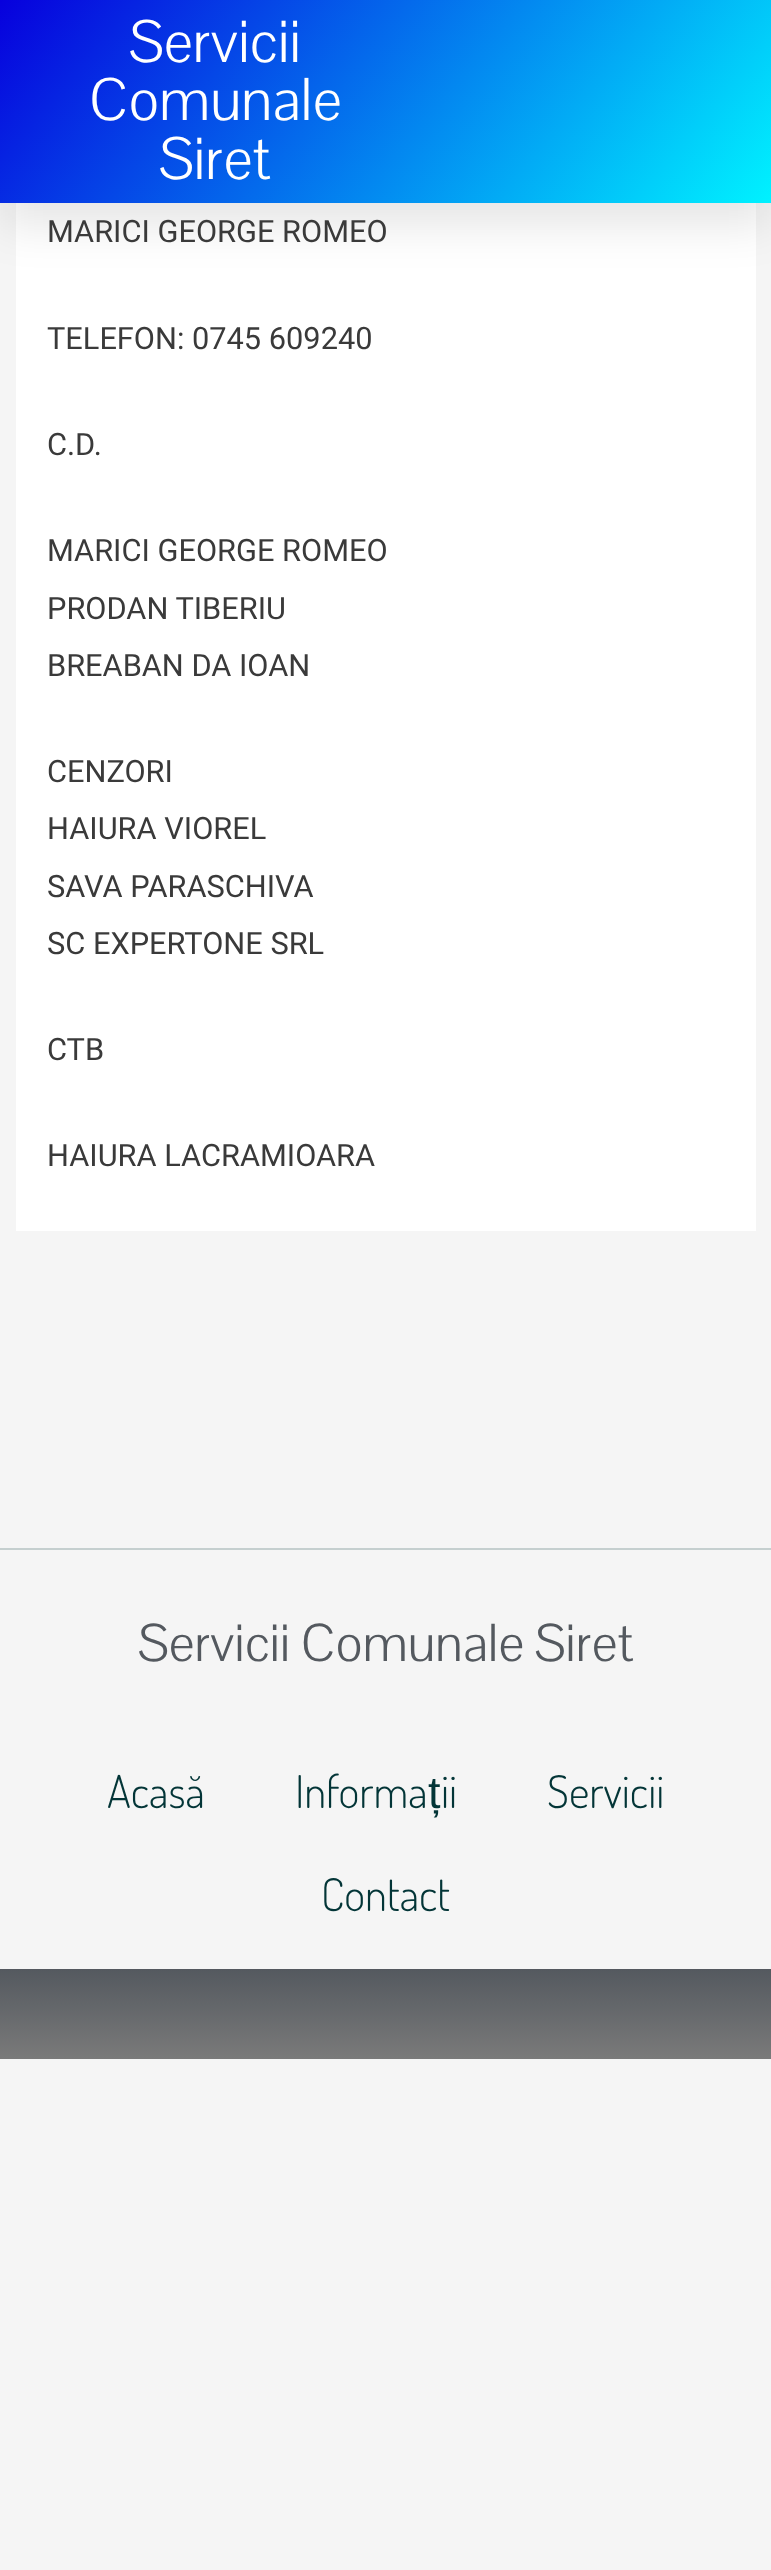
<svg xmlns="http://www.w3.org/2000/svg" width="771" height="2570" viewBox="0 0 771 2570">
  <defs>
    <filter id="blur1" x="-50%" y="-200%" width="200%" height="500%"><feGaussianBlur stdDeviation="22.5"/></filter>
    <linearGradient id="g1" gradientUnits="userSpaceOnUse" x1="110" y1="-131" x2="662" y2="333"><stop offset="0" stop-color="#0700dd"/><stop offset="1" stop-color="#00f2ff"/></linearGradient>
    <linearGradient id="g2" gradientUnits="userSpaceOnUse" x1="386" y1="1969" x2="386" y2="2059"><stop offset="0" stop-color="#54595f"/><stop offset="1" stop-color="#7a7a7a"/></linearGradient>
  </defs>
  <rect width="100%" height="100%" fill="#f5f5f5"/>
  <rect x="16" y="203" width="740" height="1028" fill="#ffffff"/>
  <rect x="0" y="23" width="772" height="202" fill="#000000" fill-opacity="0.1" filter="url(#blur1)"/>
  <rect x="0" y="0" width="771" height="203" fill="url(#g1)"/>
  <text x="129" y="62" font-family="Pontano Sans" font-size="58.5" font-weight="300" fill="#ffffff">Servicii</text>
  <text x="89" y="120" font-family="Pontano Sans" font-size="58.5" font-weight="300" fill="#ffffff">Comunale</text>
  <text x="159" y="179" font-family="Pontano Sans" font-size="58.5" font-weight="300" fill="#ffffff">Siret</text>
  <text x="47" y="242" font-family="Roboto" font-size="30.75" fill="#3a3a3a">MARICI GEORGE ROMEO</text>
  <text x="47" y="349" font-family="Roboto" font-size="30.75" fill="#3a3a3a">TELEFON: 0745 609240</text>
  <text x="47" y="455" font-family="Roboto" font-size="30.75" fill="#3a3a3a">C.D.</text>
  <text x="47" y="561" font-family="Roboto" font-size="30.75" fill="#3a3a3a">MARICI GEORGE ROMEO</text>
  <text x="47" y="619" font-family="Roboto" font-size="30.75" fill="#3a3a3a">PRODAN TIBERIU</text>
  <text x="47" y="676" font-family="Roboto" font-size="30.75" fill="#3a3a3a">BREABAN DA IOAN</text>
  <text x="47" y="782" font-family="Roboto" font-size="30.75" fill="#3a3a3a">CENZORI</text>
  <text x="47" y="839" font-family="Roboto" font-size="30.75" fill="#3a3a3a">HAIURA VIOREL</text>
  <text x="47" y="897" font-family="Roboto" font-size="30.75" fill="#3a3a3a">SAVA PARASCHIVA</text>
  <text x="47" y="954" font-family="Roboto" font-size="30.75" fill="#3a3a3a">SC EXPERTONE SRL</text>
  <text x="47" y="1060" font-family="Roboto" font-size="30.75" fill="#3a3a3a">CTB</text>
  <text x="47" y="1166" font-family="Roboto" font-size="30.75" fill="#3a3a3a">HAIURA LACRAMIOARA</text>
  <rect x="0" y="1548" width="771" height="2" fill="#c5cfcf"/>
  <text x="138" y="1661" font-family="Pontano Sans" font-size="51.75" font-weight="300" fill="#54595f">Servicii Comunale Siret</text>
  <text x="107" y="1808" font-family="Dosis" font-size="45" font-weight="300" fill="#033537">Acasă</text>
  <text x="295" y="1808" font-family="Dosis" font-size="45" font-weight="300" fill="#033537">Informa</text>
  <text x="428" y="1808" font-family="Liberation Sans" font-size="45" fill="#033537">ț</text>
  <text x="441" y="1808" font-family="Dosis" font-size="45" font-weight="300" fill="#033537">ii</text>
  <text x="547" y="1808" font-family="Dosis" font-size="45" font-weight="300" fill="#033537">Servicii</text>
  <text x="321" y="1911" font-family="Dosis" font-size="45" font-weight="300" fill="#033537">Contact</text>
  <rect x="0" y="1969" width="771" height="90" fill="url(#g2)"/>
</svg>
